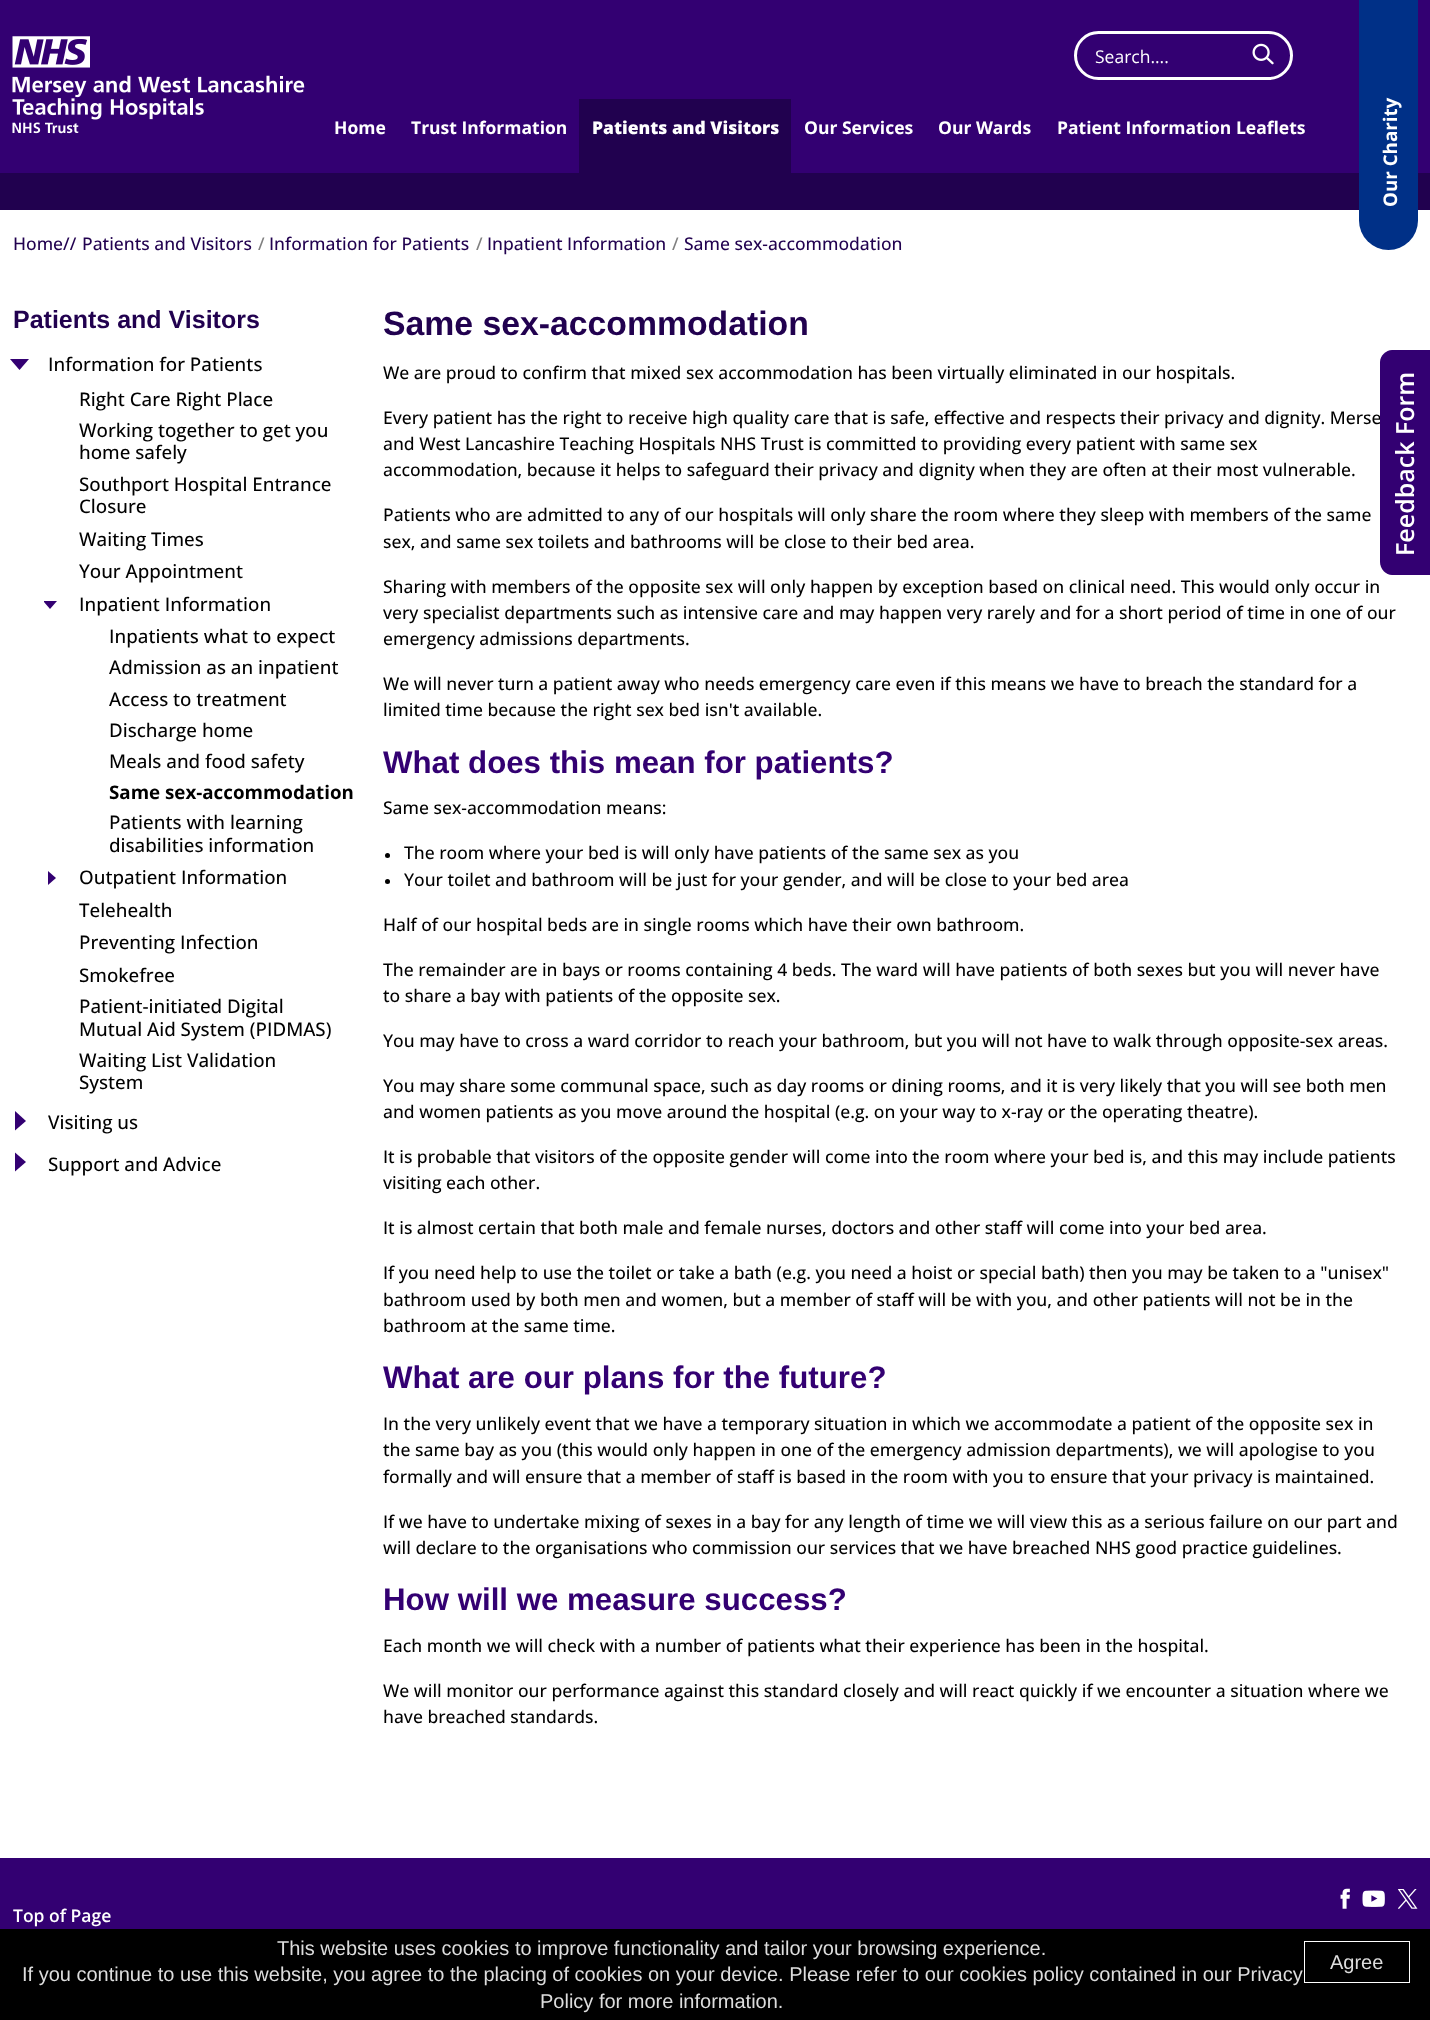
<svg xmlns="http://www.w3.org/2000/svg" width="1430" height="2020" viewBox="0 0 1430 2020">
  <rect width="100%" height="100%" fill="#ffffff"/>
  <rect x="0" y="0" width="1430" height="173" fill="#330072"/>
  <image x="12" y="36" width="293" height="98" href="img1.png"/>
  <rect x="1075.5" y="32.5" width="216" height="46" rx="23" fill="none" stroke="#ffffff" stroke-width="3"/>
  <text x="1095" y="63" font-family="Open Sans" font-size="17.5" fill="#ffffff">Search....</text>
  <image x="1252" y="43" width="22" height="22" href="img2.png"/>
  <text x="334" y="134" font-family="Open Sans" font-size="17.5" font-weight="bold" fill="#ffffff">Home</text>
  <text x="411" y="134" font-family="Open Sans" font-size="17.5" font-weight="bold" fill="#ffffff">Trust Information</text>
  <rect x="579" y="99" width="212" height="74" fill="#21014f"/>
  <text x="592" y="134" font-family="Open Sans" font-size="17.5" font-weight="800" fill="#ffffff">Patients and Visitors</text>
  <text x="804" y="134" font-family="Open Sans" font-size="17.5" font-weight="bold" fill="#ffffff">Our Services</text>
  <text x="938" y="134" font-family="Open Sans" font-size="17.5" font-weight="bold" fill="#ffffff">Our Wards</text>
  <text x="1057" y="134" font-family="Open Sans" font-size="17.5" font-weight="bold" fill="#ffffff">Patient Information Leaflets</text>
  <rect x="0" y="173" width="1430" height="37" fill="#21014f"/>
  <rect x="1359" y="-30" width="59" height="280" rx="29.5" fill="#003087"/>
  <text x="1397" y="207" transform="rotate(-90 1397 207)" font-family="Open Sans" font-size="18.75" font-weight="bold" fill="#ffffff">Our Charity</text>
  <text x="13" y="250" font-family="Open Sans" font-size="17.5" font-weight="500" fill="#21014f">Home//</text>
  <text x="82" y="250" font-family="Open Sans" font-size="17.5" font-weight="500" fill="#21014f">Patients and Visitors</text>
  <text x="258" y="250" font-family="Open Sans" font-size="17.5" font-weight="500" fill="#808080">/</text>
  <text x="269" y="250" font-family="Open Sans" font-size="17.5" font-weight="500" fill="#21014f">Information for Patients</text>
  <text x="476" y="250" font-family="Open Sans" font-size="17.5" font-weight="500" fill="#808080">/</text>
  <text x="487" y="250" font-family="Open Sans" font-size="17.5" font-weight="500" fill="#21014f">Inpatient Information</text>
  <text x="672" y="250" font-family="Open Sans" font-size="17.5" font-weight="500" fill="#808080">/</text>
  <text x="684" y="250" font-family="Open Sans" font-size="17.5" font-weight="500" fill="#21014f">Same sex-accommodation</text>
  <text x="13" y="328" font-family="Liberation Sans" font-size="25" font-weight="bold" fill="#21014f">Patients and Visitors</text>
  <path d="M29 359L19.5 370L10 359" fill="#330072"/>
  <text x="48" y="371" font-family="Open Sans" font-size="18.75" font-weight="500" fill="#000000">Information for Patients</text>
  <text x="79" y="406" font-family="Open Sans" font-size="18.75" font-weight="500" fill="#000000">Right Care Right Place</text>
  <text x="79" y="437" font-family="Open Sans" font-size="18.75" font-weight="500" fill="#000000">Working together to get you</text>
  <text x="79" y="459" font-family="Open Sans" font-size="18.75" font-weight="500" fill="#000000">home safely</text>
  <text x="79" y="491" font-family="Open Sans" font-size="18.75" font-weight="500" fill="#000000">Southport Hospital Entrance</text>
  <text x="79" y="513" font-family="Open Sans" font-size="18.75" font-weight="500" fill="#000000">Closure</text>
  <text x="79" y="546" font-family="Open Sans" font-size="18.75" font-weight="500" fill="#000000">Waiting Times</text>
  <text x="79" y="578" font-family="Open Sans" font-size="18.75" font-weight="500" fill="#000000">Your Appointment</text>
  <path d="M57 601L50 609L44 602V601Z" fill="#330072"/>
  <text x="79" y="611" font-family="Open Sans" font-size="18.75" font-weight="500" fill="#000000">Inpatient Information</text>
  <text x="109" y="643" font-family="Open Sans" font-size="18.75" font-weight="500" fill="#000000">Inpatients what to expect</text>
  <text x="109" y="674" font-family="Open Sans" font-size="18.75" font-weight="500" fill="#000000">Admission as an inpatient</text>
  <text x="109" y="706" font-family="Open Sans" font-size="18.75" font-weight="500" fill="#000000">Access to treatment</text>
  <text x="109" y="737" font-family="Open Sans" font-size="18.75" font-weight="500" fill="#000000">Discharge home</text>
  <text x="109" y="768" font-family="Open Sans" font-size="18.75" font-weight="500" fill="#000000">Meals and food safety</text>
  <text x="109" y="799" font-family="Open Sans" font-size="18.75" font-weight="bold" fill="#000000">Same sex-accommodation</text>
  <text x="109" y="829" font-family="Open Sans" font-size="18.75" font-weight="500" fill="#000000">Patients with learning</text>
  <text x="109" y="852" font-family="Open Sans" font-size="18.75" font-weight="500" fill="#000000">disabilities information</text>
  <path d="M48 871L56 878L48 885" fill="#330072"/>
  <text x="79" y="884" font-family="Open Sans" font-size="18.75" font-weight="500" fill="#000000">Outpatient Information</text>
  <text x="79" y="917" font-family="Open Sans" font-size="18.75" font-weight="500" fill="#000000">Telehealth</text>
  <text x="79" y="949" font-family="Open Sans" font-size="18.75" font-weight="500" fill="#000000">Preventing Infection</text>
  <text x="79" y="982" font-family="Open Sans" font-size="18.75" font-weight="500" fill="#000000">Smokefree</text>
  <text x="79" y="1013" font-family="Open Sans" font-size="18.75" font-weight="500" fill="#000000">Patient-initiated Digital</text>
  <text x="79" y="1036" font-family="Open Sans" font-size="18.75" font-weight="500" fill="#000000">Mutual Aid System (PIDMAS)</text>
  <text x="79" y="1067" font-family="Open Sans" font-size="18.75" font-weight="500" fill="#000000">Waiting List Validation</text>
  <text x="79" y="1089" font-family="Open Sans" font-size="18.75" font-weight="500" fill="#000000">System</text>
  <path d="M15 1111L26 1121L15 1130.5" fill="#330072"/>
  <text x="48" y="1129" font-family="Open Sans" font-size="18.75" font-weight="500" fill="#000000">Visiting us</text>
  <path d="M15 1152.5L26 1162L15 1171.5" fill="#330072"/>
  <text x="48" y="1171" font-family="Open Sans" font-size="18.75" font-weight="500" fill="#000000">Support and Advice</text>
  <text x="383" y="335" font-family="Liberation Sans" font-size="33.75" font-weight="bold" fill="#21014f">Same sex-accommodation</text>
  <text x="383" y="379" font-family="Open Sans" font-size="17.5" font-weight="500" fill="#000000">We are proud to confirm that mixed sex accommodation has been virtually eliminated in our hospitals.</text>
  <text x="383" y="424" font-family="Open Sans" font-size="17.5" font-weight="500" fill="#000000">Every patient has the right to receive high quality care that is safe, effective and respects their privacy and dignity. Merse</text>
  <text x="383" y="450" font-family="Open Sans" font-size="17.5" font-weight="500" fill="#000000">and West Lancashire Teaching Hospitals NHS Trust is committed to providing every patient with same sex</text>
  <text x="383" y="476" font-family="Open Sans" font-size="17.5" font-weight="500" fill="#000000">accommodation, because it helps to safeguard their privacy and dignity when they are often at their most vulnerable.</text>
  <text x="383" y="521" font-family="Open Sans" font-size="17.5" font-weight="500" fill="#000000">Patients who are admitted to any of our hospitals will only share the room where they sleep with members of the same</text>
  <text x="383" y="548" font-family="Open Sans" font-size="17.5" font-weight="500" fill="#000000">sex, and same sex toilets and bathrooms will be close to their bed area.</text>
  <text x="383" y="593" font-family="Open Sans" font-size="17.5" font-weight="500" fill="#000000">Sharing with members of the opposite sex will only happen by exception based on clinical need. This would only occur in</text>
  <text x="383" y="619" font-family="Open Sans" font-size="17.5" font-weight="500" fill="#000000">very specialist departments such as intensive care and may happen very rarely and for a short period of time in one of our</text>
  <text x="383" y="645" font-family="Open Sans" font-size="17.5" font-weight="500" fill="#000000">emergency admissions departments.</text>
  <text x="383" y="690" font-family="Open Sans" font-size="17.5" font-weight="500" fill="#000000">We will never turn a patient away who needs emergency care even if this means we have to breach the standard for a</text>
  <text x="383" y="716" font-family="Open Sans" font-size="17.5" font-weight="500" fill="#000000">limited time because the right sex bed isn't available.</text>
  <text x="383" y="773" font-family="Liberation Sans" font-size="31.25" font-weight="bold" fill="#330072">What does this mean for patients?</text>
  <text x="383" y="814" font-family="Open Sans" font-size="17.5" font-weight="500" fill="#000000">Same sex-accommodation means:</text>
  <circle cx="387.5" cy="855.5" r="2.5" fill="#000000"/>
  <text x="404" y="859" font-family="Open Sans" font-size="17.5" font-weight="500" fill="#000000">The room where your bed is will only have patients of the same sex as you</text>
  <circle cx="387.5" cy="881.5" r="2.5" fill="#000000"/>
  <text x="404" y="886" font-family="Open Sans" font-size="17.5" font-weight="500" fill="#000000">Your toilet and bathroom will be just for your gender, and will be close to your bed area</text>
  <text x="383" y="931" font-family="Open Sans" font-size="17.5" font-weight="500" fill="#000000">Half of our hospital beds are in single rooms which have their own bathroom.</text>
  <text x="383" y="976" font-family="Open Sans" font-size="17.5" font-weight="500" fill="#000000">The remainder are in bays or rooms containing 4 beds. The ward will have patients of both sexes but you will never have</text>
  <text x="383" y="1002" font-family="Open Sans" font-size="17.5" font-weight="500" fill="#000000">to share a bay with patients of the opposite sex.</text>
  <text x="383" y="1047" font-family="Open Sans" font-size="17.5" font-weight="500" fill="#000000">You may have to cross a ward corridor to reach your bathroom, but you will not have to walk through opposite-sex areas.</text>
  <text x="383" y="1092" font-family="Open Sans" font-size="17.5" font-weight="500" fill="#000000">You may share some communal space, such as day rooms or dining rooms, and it is very likely that you will see both men</text>
  <text x="383" y="1118" font-family="Open Sans" font-size="17.5" font-weight="500" fill="#000000">and women patients as you move around the hospital (e.g. on your way to x-ray or the operating theatre).</text>
  <text x="383" y="1163" font-family="Open Sans" font-size="17.5" font-weight="500" fill="#000000">It is probable that visitors of the opposite gender will come into the room where your bed is, and this may include patients</text>
  <text x="383" y="1189" font-family="Open Sans" font-size="17.5" font-weight="500" fill="#000000">visiting each other.</text>
  <text x="383" y="1234" font-family="Open Sans" font-size="17.5" font-weight="500" fill="#000000">It is almost certain that both male and female nurses, doctors and other staff will come into your bed area.</text>
  <text x="383" y="1279" font-family="Open Sans" font-size="17.5" font-weight="500" fill="#000000">If you need help to use the toilet or take a bath (e.g. you need a hoist or special bath) then you may be taken to a "unisex"</text>
  <text x="383" y="1306" font-family="Open Sans" font-size="17.5" font-weight="500" fill="#000000">bathroom used by both men and women, but a member of staff will be with you, and other patients will not be in the</text>
  <text x="383" y="1332" font-family="Open Sans" font-size="17.5" font-weight="500" fill="#000000">bathroom at the same time.</text>
  <text x="383" y="1388" font-family="Liberation Sans" font-size="31.25" font-weight="bold" fill="#330072">What are our plans for the future?</text>
  <text x="383" y="1430" font-family="Open Sans" font-size="17.5" font-weight="500" fill="#000000">In the very unlikely event that we have a temporary situation in which we accommodate a patient of the opposite sex in</text>
  <text x="383" y="1456" font-family="Open Sans" font-size="17.5" font-weight="500" fill="#000000">the same bay as you (this would only happen in one of the emergency admission departments), we will apologise to you</text>
  <text x="383" y="1483" font-family="Open Sans" font-size="17.5" font-weight="500" fill="#000000">formally and will ensure that a member of staff is based in the room with you to ensure that your privacy is maintained.</text>
  <text x="383" y="1528" font-family="Open Sans" font-size="17.5" font-weight="500" fill="#000000">If we have to undertake mixing of sexes in a bay for any length of time we will view this as a serious failure on our part and</text>
  <text x="383" y="1554" font-family="Open Sans" font-size="17.5" font-weight="500" fill="#000000">will declare to the organisations who commission our services that we have breached NHS good practice guidelines.</text>
  <text x="383" y="1610" font-family="Liberation Sans" font-size="31.25" font-weight="bold" fill="#330072">How will we measure success?</text>
  <text x="383" y="1652" font-family="Open Sans" font-size="17.5" font-weight="500" fill="#000000">Each month we will check with a number of patients what their experience has been in the hospital.</text>
  <text x="383" y="1697" font-family="Open Sans" font-size="17.5" font-weight="500" fill="#000000">We will monitor our performance against this standard closely and will react quickly if we encounter a situation where we</text>
  <text x="383" y="1723" font-family="Open Sans" font-size="17.5" font-weight="500" fill="#000000">have breached standards.</text>
  <path d="M1380 562V362C1380 356 1386 350 1392 350H1430V575H1392C1386 575 1380 569 1380 562Z" fill="#330072"/>
  <text x="1414" y="556" transform="rotate(-90 1414 556)" font-family="Open Sans" font-size="25" font-weight="600" fill="#ffffff">Feedback Form</text>
  <rect x="0" y="1858" width="1430" height="71" fill="#330072"/>
  <image x="1340" y="1888" width="10" height="21" href="img3.png"/>
  <image x="1362" y="1890" width="23" height="17" href="img4.png"/>
  <image x="1398" y="1889" width="20" height="20" href="img5.png"/>
  <text x="13" y="1922" font-family="Open Sans" font-size="17.5" font-weight="600" fill="#ffffff">Top of Page</text>
  <rect x="0" y="1929" width="1430" height="91" fill="#000000"/>
  <text x="277" y="1955" font-family="Liberation Sans" font-size="20" fill="#dddddd">This website uses cookies to improve functionality and tailor your browsing experience.</text>
  <text x="22" y="1981" font-family="Liberation Sans" font-size="20" fill="#dddddd">If you continue to use this website, you agree to the placing of cookies on your device. Please refer to our cookies policy contained in our Privacy</text>
  <rect x="1304.5" y="1941.5" width="105" height="41" fill="none" stroke="#ffffff"/>
  <text x="1330" y="1969" font-family="Liberation Sans" font-size="20" fill="#dddddd">Agree</text>
  <text x="540" y="2008" font-family="Liberation Sans" font-size="20" fill="#dddddd">Policy for more information.</text>
</svg>
